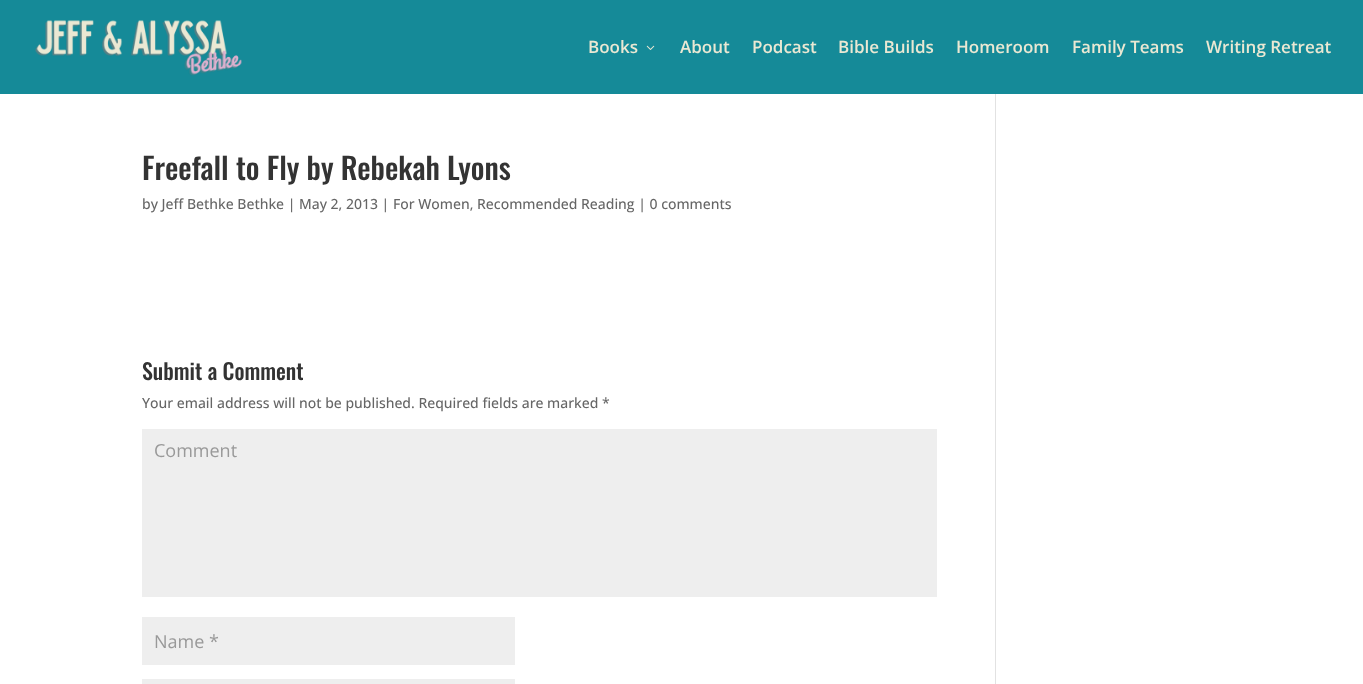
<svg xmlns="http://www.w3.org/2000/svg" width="1363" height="684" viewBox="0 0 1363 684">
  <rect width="100%" height="100%" fill="#ffffff"/>
  <rect x="0" y="0" width="1363" height="94" fill="#158a98"/>
  <image x="35" y="20" width="207" height="56" href="img1.png"/>
  <text x="588" y="53" font-family="Open Sans" font-size="17" font-weight="600" fill="#eae8d3">Books</text>
  <image x="646" y="45" width="9" height="5" href="img2.png"/>
  <text x="680" y="53" font-family="Open Sans" font-size="17" font-weight="600" fill="#eae8d3">About</text>
  <text x="752" y="53" font-family="Open Sans" font-size="17" font-weight="600" fill="#eae8d3">Podcast</text>
  <text x="838" y="53" font-family="Open Sans" font-size="17" font-weight="600" fill="#eae8d3">Bible Builds</text>
  <text x="956" y="53" font-family="Open Sans" font-size="17" font-weight="600" fill="#eae8d3">Homeroom</text>
  <text x="1072" y="53" font-family="Open Sans" font-size="17" font-weight="600" fill="#eae8d3">Family Teams</text>
  <text x="1206" y="53" font-family="Open Sans" font-size="17" font-weight="600" fill="#eae8d3">Writing Retreat</text>
  <text x="142" y="180" font-family="Oswald" font-size="30" font-weight="500" fill="#333333">Freefall to Fly by Rebekah Lyons</text>
  <text x="142" y="209" font-family="Open Sans" font-size="14" font-weight="500" fill="#666666">by Jeff Bethke Bethke | May 2, 2013 | For Women, Recommended Reading | 0 comments</text>
  <text x="142" y="380" font-family="Oswald" font-size="22" font-weight="500" fill="#333333">Submit a Comment</text>
  <text x="142" y="408" font-family="Open Sans" font-size="14" font-weight="500" fill="#666666">Your email address will not be published. Required fields are marked *</text>
  <rect x="142" y="429" width="795" height="168" fill="#eeeeee"/>
  <text x="154" y="457" font-family="Open Sans" font-size="18" fill="#999999">Comment</text>
  <rect x="142" y="617" width="373" height="48" fill="#eeeeee"/>
  <text x="154" y="648" font-family="Open Sans" font-size="18" fill="#999999">Name *</text>
  <rect x="142" y="679" width="373" height="5" fill="#eeeeee"/>
  <rect x="995" y="94" width="1" height="590" fill="#e2e2e2"/>
</svg>
